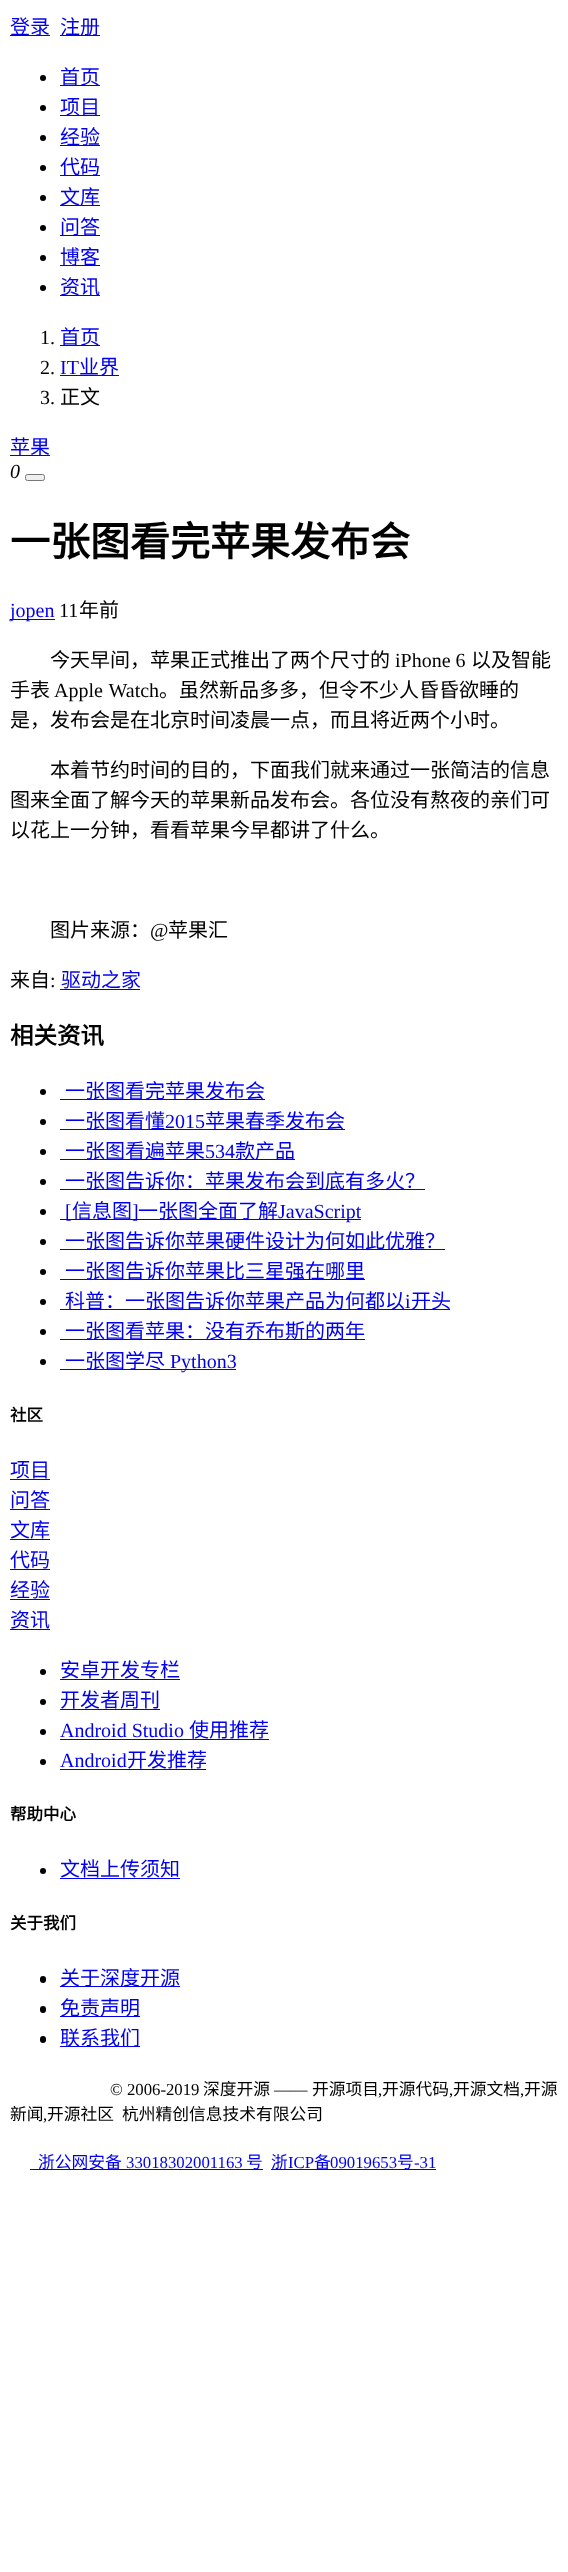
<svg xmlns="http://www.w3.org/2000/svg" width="568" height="2572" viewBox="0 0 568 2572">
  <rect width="100%" height="100%" fill="#ffffff"/>
  <rect x="10" y="35" width="40" height="1" fill="#0000ee"/>
  <text x="10" y="34" font-family="Noto Sans CJK SC" font-size="20" fill="#0000ee">登录</text>
  <rect x="60" y="35" width="40" height="1" fill="#0000ee"/>
  <text x="60" y="34" font-family="Noto Sans CJK SC" font-size="20" fill="#0000ee">注册</text>
  <circle cx="43" cy="78" r="3" fill="#000000"/>
  <rect x="60" y="85" width="40" height="1" fill="#0000ee"/>
  <text x="60" y="84" font-family="Noto Sans CJK SC" font-size="20" fill="#0000ee">首页</text>
  <circle cx="43" cy="108" r="3" fill="#000000"/>
  <rect x="60" y="115" width="40" height="1" fill="#0000ee"/>
  <text x="60" y="114" font-family="Noto Sans CJK SC" font-size="20" fill="#0000ee">项目</text>
  <circle cx="43" cy="138" r="3" fill="#000000"/>
  <rect x="60" y="145" width="40" height="1" fill="#0000ee"/>
  <text x="60" y="144" font-family="Noto Sans CJK SC" font-size="20" fill="#0000ee">经验</text>
  <circle cx="43" cy="168" r="3" fill="#000000"/>
  <rect x="60" y="175" width="40" height="1" fill="#0000ee"/>
  <text x="60" y="174" font-family="Noto Sans CJK SC" font-size="20" fill="#0000ee">代码</text>
  <circle cx="43" cy="198" r="3" fill="#000000"/>
  <rect x="60" y="205" width="40" height="1" fill="#0000ee"/>
  <text x="60" y="204" font-family="Noto Sans CJK SC" font-size="20" fill="#0000ee">文库</text>
  <circle cx="43" cy="228" r="3" fill="#000000"/>
  <rect x="60" y="235" width="40" height="1" fill="#0000ee"/>
  <text x="60" y="234" font-family="Noto Sans CJK SC" font-size="20" fill="#0000ee">问答</text>
  <circle cx="43" cy="258" r="3" fill="#000000"/>
  <rect x="60" y="265" width="40" height="1" fill="#0000ee"/>
  <text x="60" y="264" font-family="Noto Sans CJK SC" font-size="20" fill="#0000ee">博客</text>
  <circle cx="43" cy="288" r="3" fill="#000000"/>
  <rect x="60" y="295" width="40" height="1" fill="#0000ee"/>
  <text x="60" y="294" font-family="Noto Sans CJK SC" font-size="20" fill="#0000ee">资讯</text>
  <text x="40" y="344" font-family="Liberation Serif" font-size="20" fill="#000000">1.</text>
  <rect x="60" y="345" width="40" height="1" fill="#0000ee"/>
  <text x="60" y="344" font-family="Noto Sans CJK SC" font-size="20" fill="#0000ee">首页</text>
  <text x="40" y="374" font-family="Liberation Serif" font-size="20" fill="#000000">2.</text>
  <text x="60" y="374" font-family="Liberation Serif" font-size="20" fill="#0000ee">IT</text>
  <rect x="60" y="375" width="59" height="1" fill="#0000ee"/>
  <text x="79" y="374" font-family="Noto Sans CJK SC" font-size="20" fill="#0000ee">业界</text>
  <text x="40" y="404" font-family="Liberation Serif" font-size="20" fill="#000000">3.</text>
  <text x="60" y="404" font-family="Noto Sans CJK SC" font-size="20" fill="#000000">正文</text>
  <rect x="10" y="455" width="40" height="1" fill="#0000ee"/>
  <text x="10" y="454" font-family="Noto Sans CJK SC" font-size="20" fill="#0000ee">苹果</text>
  <text x="10" y="478" font-family="Liberation Serif" font-size="20" font-style="italic" fill="#000000">0</text>
  <rect x="25.5" y="474.5" width="19" height="6" rx="2" fill="#efefef" stroke="#767676"/>
  <text x="10" y="556" font-family="Noto Sans CJK SC" font-size="40" font-weight="bold" fill="#000000">一张图看完苹果发布会</text>
  <rect x="10" y="619" width="45" height="1" fill="#0000ee"/>
  <text x="10" y="617" font-family="Liberation Serif" font-size="20" fill="#0000ee">jopen</text>
  <text x="59" y="617" font-family="Liberation Serif" font-size="20" fill="#000000">11</text>
  <text x="79" y="617" font-family="Noto Sans CJK SC" font-size="20" fill="#000000">年前</text>
  <text x="50" y="667" font-family="Noto Sans CJK SC" font-size="20" fill="#000000">今天早间，苹果正式推出了两个尺寸的</text>
  <text x="395" y="667" font-family="Liberation Serif" font-size="20" fill="#000000">iPhone 6</text>
  <text x="471" y="667" font-family="Noto Sans CJK SC" font-size="20" fill="#000000">以及智能</text>
  <text x="10" y="697" font-family="Noto Sans CJK SC" font-size="20" fill="#000000">手表</text>
  <text x="54" y="697" word-spacing="1" font-family="Liberation Serif" font-size="20" fill="#000000">Apple Watch</text>
  <text x="159" y="697" font-family="Noto Sans CJK SC" font-size="20" fill="#000000">。虽然新品多多，但令不少人昏昏欲睡的</text>
  <text x="10" y="727" font-family="Noto Sans CJK SC" font-size="20" fill="#000000">是，发布会是在北京时间凌晨一点，而且将近两个小时。</text>
  <text x="50" y="777" font-family="Noto Sans CJK SC" font-size="20" fill="#000000">本着节约时间的目的，下面我们就来通过一张简洁的信息</text>
  <text x="10" y="807" font-family="Noto Sans CJK SC" font-size="20" fill="#000000">图来全面了解今天的苹果新品发布会。各位没有熬夜的亲们可</text>
  <text x="10" y="837" font-family="Noto Sans CJK SC" font-size="20" fill="#000000">以花上一分钟，看看苹果今早都讲了什么。</text>
  <text x="50" y="937" font-family="Noto Sans CJK SC" font-size="20" fill="#000000">图片来源：</text>
  <text x="150" y="937" font-family="Liberation Serif" font-size="20" fill="#000000">@</text>
  <text x="168" y="937" font-family="Noto Sans CJK SC" font-size="20" fill="#000000">苹果汇</text>
  <text x="10" y="987" font-family="Noto Sans CJK SC" font-size="20" fill="#000000">来自</text>
  <text x="50" y="987" font-family="Liberation Serif" font-size="20" fill="#000000">:</text>
  <text x="61" y="987" font-family="Noto Sans CJK SC" font-size="20" fill="#0000ee">驱动之家</text>
  <rect x="60" y="989" width="80" height="1" fill="#0000ee"/>
  <text x="10" y="1044" font-family="Noto Sans CJK SC" font-size="23.5" font-weight="bold" fill="#000000">相关资讯</text>
  <circle cx="43" cy="1092" r="3" fill="#000000"/>
  <rect x="60" y="1099" width="205" height="1" fill="#0000ee"/>
  <text x="65" y="1098" font-family="Noto Sans CJK SC" font-size="20" fill="#0000ee">一张图看完苹果发布会</text>
  <circle cx="43" cy="1122" r="3" fill="#000000"/>
  <rect x="60" y="1129" width="285" height="1" fill="#0000ee"/>
  <text x="65" y="1128" font-family="Noto Sans CJK SC" font-size="20" fill="#0000ee">一张图看懂</text>
  <text x="165" y="1128" font-family="Liberation Serif" font-size="20" fill="#0000ee">2015</text>
  <text x="205" y="1128" font-family="Noto Sans CJK SC" font-size="20" fill="#0000ee">苹果春季发布会</text>
  <circle cx="43" cy="1152" r="3" fill="#000000"/>
  <rect x="60" y="1159" width="235" height="1" fill="#0000ee"/>
  <text x="65" y="1158" font-family="Noto Sans CJK SC" font-size="20" fill="#0000ee">一张图看遍苹果</text>
  <text x="205" y="1158" font-family="Liberation Serif" font-size="20" fill="#0000ee">534</text>
  <text x="235" y="1158" font-family="Noto Sans CJK SC" font-size="20" fill="#0000ee">款产品</text>
  <circle cx="43" cy="1182" r="3" fill="#000000"/>
  <rect x="60" y="1189" width="365" height="1" fill="#0000ee"/>
  <text x="65" y="1188" font-family="Noto Sans CJK SC" font-size="20" fill="#0000ee">一张图告诉你：苹果发布会到底有多火？</text>
  <circle cx="43" cy="1212" r="3" fill="#000000"/>
  <rect x="60" y="1219" width="301" height="1" fill="#0000ee"/>
  <text x="65" y="1218" font-family="Liberation Serif" font-size="20" fill="#0000ee">[</text>
  <text x="72" y="1218" font-family="Noto Sans CJK SC" font-size="20" fill="#0000ee">信息图</text>
  <text x="132" y="1218" font-family="Liberation Serif" font-size="20" fill="#0000ee">]</text>
  <text x="138" y="1218" font-family="Noto Sans CJK SC" font-size="20" fill="#0000ee">一张图全面了解</text>
  <text x="278" y="1218" font-family="Liberation Serif" font-size="20" fill="#0000ee">JavaScript</text>
  <circle cx="43" cy="1242" r="3" fill="#000000"/>
  <rect x="60" y="1249" width="385" height="1" fill="#0000ee"/>
  <text x="65" y="1248" font-family="Noto Sans CJK SC" font-size="20" fill="#0000ee">一张图告诉你苹果硬件设计为何如此优雅？</text>
  <circle cx="43" cy="1272" r="3" fill="#000000"/>
  <rect x="60" y="1279" width="305" height="1" fill="#0000ee"/>
  <text x="65" y="1278" font-family="Noto Sans CJK SC" font-size="20" fill="#0000ee">一张图告诉你苹果比三星强在哪里</text>
  <circle cx="43" cy="1302" r="3" fill="#000000"/>
  <rect x="60" y="1309" width="390" height="1" fill="#0000ee"/>
  <text x="65" y="1308" font-family="Noto Sans CJK SC" font-size="20" fill="#0000ee">科普：一张图告诉你苹果产品为何都以</text>
  <text x="405" y="1308" font-family="Liberation Serif" font-size="20" fill="#0000ee">i</text>
  <text x="411" y="1308" font-family="Noto Sans CJK SC" font-size="20" fill="#0000ee">开头</text>
  <circle cx="43" cy="1332" r="3" fill="#000000"/>
  <rect x="60" y="1339" width="305" height="1" fill="#0000ee"/>
  <text x="65" y="1338" font-family="Noto Sans CJK SC" font-size="20" fill="#0000ee">一张图看苹果：没有乔布斯的两年</text>
  <circle cx="43" cy="1362" r="3" fill="#000000"/>
  <rect x="60" y="1369" width="176" height="1" fill="#0000ee"/>
  <text x="65" y="1368" font-family="Noto Sans CJK SC" font-size="20" fill="#0000ee">一张图学尽</text>
  <text x="170" y="1368" font-family="Liberation Serif" font-size="20" fill="#0000ee">Python3</text>
  <text x="10" y="1421" font-family="Noto Sans CJK SC" font-size="16.5" font-weight="bold" fill="#000000">社区</text>
  <text x="10" y="1477" font-family="Noto Sans CJK SC" font-size="20" fill="#0000ee">项目</text>
  <rect x="10" y="1479" width="40" height="1" fill="#0000ee"/>
  <text x="10" y="1507" font-family="Noto Sans CJK SC" font-size="20" fill="#0000ee">问答</text>
  <rect x="10" y="1509" width="40" height="1" fill="#0000ee"/>
  <text x="10" y="1537" font-family="Noto Sans CJK SC" font-size="20" fill="#0000ee">文库</text>
  <rect x="10" y="1539" width="40" height="1" fill="#0000ee"/>
  <text x="10" y="1567" font-family="Noto Sans CJK SC" font-size="20" fill="#0000ee">代码</text>
  <rect x="10" y="1569" width="40" height="1" fill="#0000ee"/>
  <text x="10" y="1597" font-family="Noto Sans CJK SC" font-size="20" fill="#0000ee">经验</text>
  <rect x="10" y="1599" width="40" height="1" fill="#0000ee"/>
  <text x="10" y="1627" font-family="Noto Sans CJK SC" font-size="20" fill="#0000ee">资讯</text>
  <rect x="10" y="1629" width="40" height="1" fill="#0000ee"/>
  <circle cx="43" cy="1672" r="3" fill="#000000"/>
  <text x="60" y="1677" font-family="Noto Sans CJK SC" font-size="20" fill="#0000ee">安卓开发专栏</text>
  <rect x="60" y="1679" width="120" height="1" fill="#0000ee"/>
  <circle cx="43" cy="1702" r="3" fill="#000000"/>
  <text x="60" y="1707" font-family="Noto Sans CJK SC" font-size="20" fill="#0000ee">开发者周刊</text>
  <rect x="60" y="1709" width="100" height="1" fill="#0000ee"/>
  <circle cx="43" cy="1732" r="3" fill="#000000"/>
  <text x="60" y="1737" font-family="Liberation Serif" font-size="20" fill="#0000ee">Android Studio</text>
  <rect x="60" y="1739" width="209" height="1" fill="#0000ee"/>
  <text x="189" y="1737" font-family="Noto Sans CJK SC" font-size="20" fill="#0000ee">使用推荐</text>
  <circle cx="43" cy="1762" r="3" fill="#000000"/>
  <text x="60" y="1767" font-family="Liberation Serif" font-size="20" fill="#0000ee">Android</text>
  <rect x="60" y="1769" width="146" height="1" fill="#0000ee"/>
  <text x="127" y="1767" font-family="Noto Sans CJK SC" font-size="20" fill="#0000ee">开发推荐</text>
  <text x="10" y="1820" font-family="Noto Sans CJK SC" font-size="16.5" font-weight="bold" fill="#000000">帮助中心</text>
  <circle cx="43" cy="1871" r="3" fill="#000000"/>
  <text x="60" y="1876" font-family="Noto Sans CJK SC" font-size="20" fill="#0000ee">文档上传须知</text>
  <rect x="60" y="1878" width="120" height="1" fill="#0000ee"/>
  <text x="10" y="1929" font-family="Noto Sans CJK SC" font-size="16.5" font-weight="bold" fill="#000000">关于我们</text>
  <rect x="40" y="1976" width="6" height="7" rx="3" fill="#000000"/>
  <rect x="60" y="1986" width="120" height="1" fill="#0000ee"/>
  <text x="60" y="1985" font-family="Noto Sans CJK SC" font-size="20" fill="#0000ee">关于深度开源</text>
  <rect x="40" y="2006" width="6" height="7" rx="3" fill="#000000"/>
  <rect x="60" y="2016" width="80" height="1" fill="#0000ee"/>
  <text x="60" y="2015" font-family="Noto Sans CJK SC" font-size="20" fill="#0000ee">免责声明</text>
  <rect x="40" y="2036" width="6" height="7" rx="3" fill="#000000"/>
  <rect x="60" y="2046" width="80" height="1" fill="#0000ee"/>
  <text x="60" y="2045" font-family="Noto Sans CJK SC" font-size="20" fill="#0000ee">联系我们</text>
  <text x="110" y="2095" font-family="Liberation Serif" font-size="16.75" fill="#000000">© 2006-2019</text>
  <text x="203" y="2095" font-family="Noto Sans CJK SC" font-size="16.75" fill="#000000">深度开源</text>
  <text x="274" y="2095" font-family="Liberation Serif" font-size="16.75" fill="#000000">——</text>
  <text x="312" y="2095" font-family="Noto Sans CJK SC" font-size="16.75" fill="#000000">开源项目</text>
  <text x="382" y="2095" font-family="Noto Sans CJK SC" font-size="16.75" fill="#000000">开源代码</text>
  <text x="453" y="2095" font-family="Noto Sans CJK SC" font-size="16.75" fill="#000000">开源文档</text>
  <text x="524" y="2095" font-family="Noto Sans CJK SC" font-size="16.75" fill="#000000">开源</text>
  <text x="378" y="2095" font-family="Liberation Serif" font-size="16.75" fill="#000000">,</text>
  <text x="449" y="2095" font-family="Liberation Serif" font-size="16.75" fill="#000000">,</text>
  <text x="520" y="2095" font-family="Liberation Serif" font-size="16.75" fill="#000000">,</text>
  <text x="10" y="2120" font-family="Noto Sans CJK SC" font-size="16.75" fill="#000000">新闻</text>
  <text x="43" y="2120" font-family="Liberation Serif" font-size="16.75" fill="#000000">,</text>
  <text x="47" y="2120" font-family="Noto Sans CJK SC" font-size="16.75" fill="#000000">开源社区</text>
  <text x="122" y="2120" font-family="Noto Sans CJK SC" font-size="16.75" fill="#000000">杭州精创信息技术有限公司</text>
  <rect x="30" y="2169" width="233" height="1" fill="#0000ee"/>
  <text x="38" y="2168" font-family="Noto Sans CJK SC" font-size="16.75" fill="#0000ee">浙公网安备</text>
  <text x="126" y="2168" font-family="Liberation Serif" font-size="16.75" fill="#0000ee">33018302001163</text>
  <text x="246" y="2168" font-family="Noto Sans CJK SC" font-size="16.75" fill="#0000ee">号</text>
  <rect x="271" y="2169" width="165" height="1" fill="#0000ee"/>
  <text x="271" y="2168" font-family="Noto Sans CJK SC" font-size="16.75" fill="#0000ee">浙</text>
  <text x="288" y="2168" font-family="Liberation Serif" font-size="16.75" fill="#0000ee">ICP</text>
  <text x="314" y="2168" font-family="Noto Sans CJK SC" font-size="16.75" fill="#0000ee">备</text>
  <text x="330" y="2168" font-family="Liberation Serif" font-size="16.75" fill="#0000ee">09019653</text>
  <text x="397" y="2168" font-family="Noto Sans CJK SC" font-size="16.75" fill="#0000ee">号</text>
  <text x="414" y="2168" font-family="Liberation Serif" font-size="16.75" fill="#0000ee">-31</text>
</svg>
